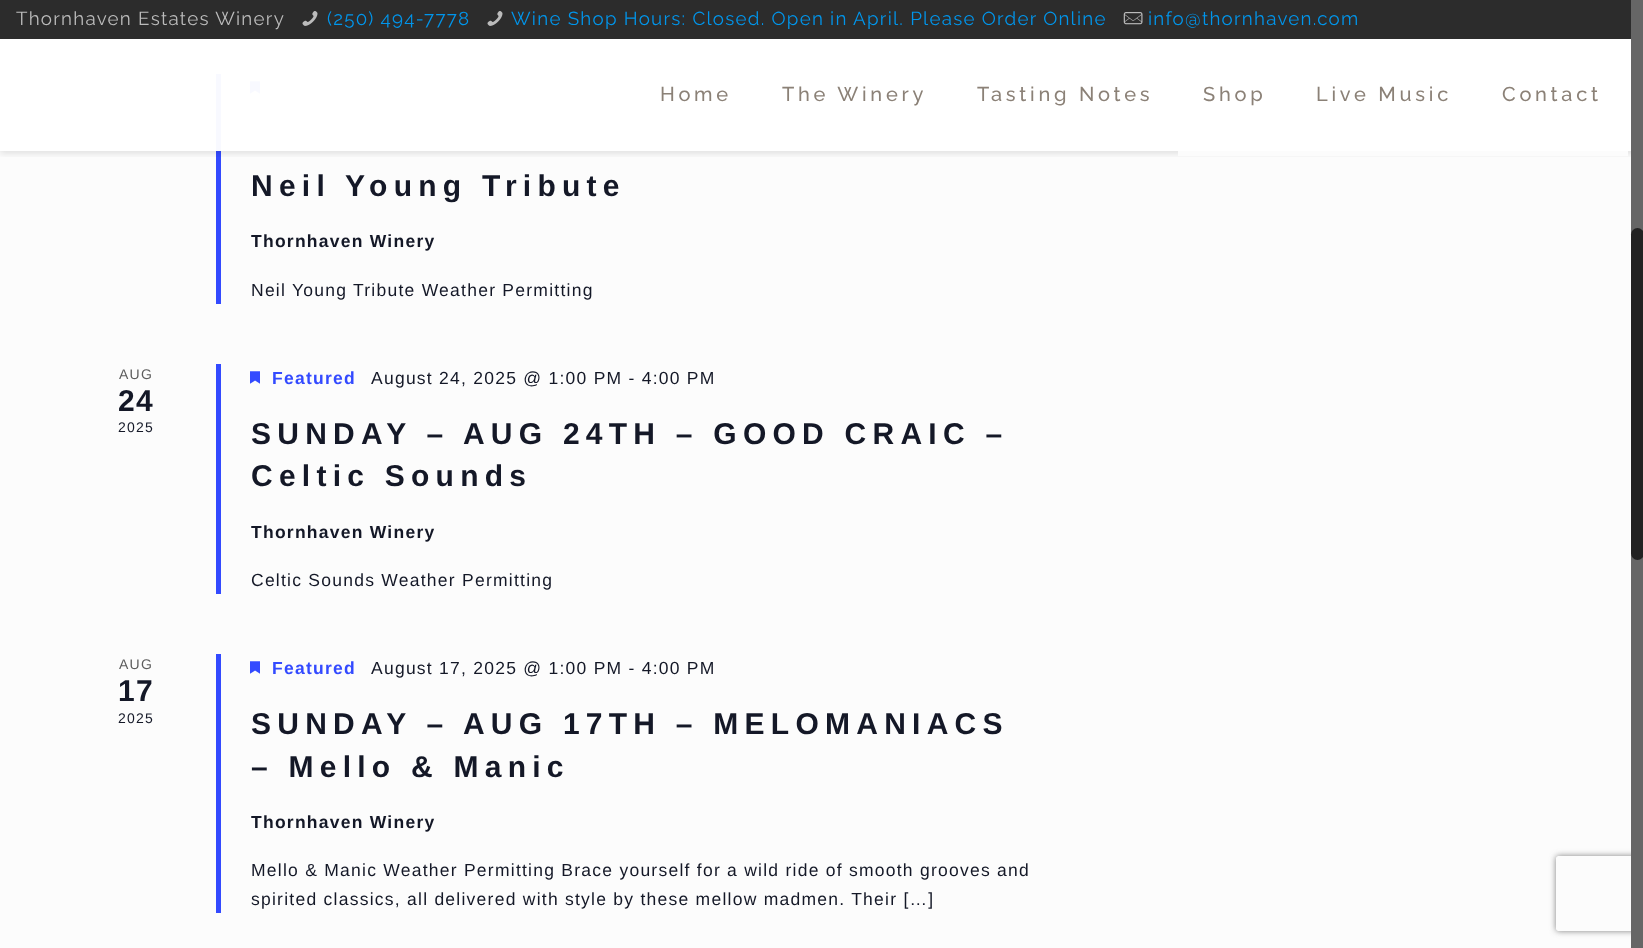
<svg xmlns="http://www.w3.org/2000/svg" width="1643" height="948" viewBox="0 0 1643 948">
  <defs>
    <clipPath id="clip1"><rect x="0" y="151" width="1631" height="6"/></clipPath>
    <filter id="blur1" x="-50%" y="-200%" width="200%" height="500%"><feGaussianBlur stdDeviation="3"/></filter>
    <clipPath id="clip2"><path d="M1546 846H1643V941H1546ZM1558.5 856H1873.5C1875 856 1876 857 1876 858.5V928.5C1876 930 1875 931 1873.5 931H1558.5C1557 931 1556 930 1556 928.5V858.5C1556 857 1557 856 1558.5 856Z" clip-rule="evenodd"/></clipPath>
  </defs>
  <rect width="100%" height="100%" fill="#fcfcfc"/>
  <rect x="0" y="0" width="1631" height="39" fill="#2c2c2c"/>
  <text x="16" y="25" font-family="Raleway" font-size="18.75" letter-spacing="1.25" fill="#bbbbbb">Thornhaven Estates Winery</text>
  <image x="302" y="11" width="16" height="15" href="img1.png"/>
  <text x="327" y="25" font-family="Raleway" font-size="18.75" letter-spacing="1.25" fill="#0095eb">(250) 494-7778</text>
  <image x="487" y="11" width="16" height="15" href="img1.png"/>
  <text x="511" y="25" font-family="Raleway" font-size="18.75" letter-spacing="1.25" fill="#0095eb">Wine Shop Hours: Closed. Open in April. Please Order Online</text>
  <image x="1123" y="12" width="20" height="13" href="img2.png"/>
  <text x="1148" y="25" font-family="Raleway" font-size="18.75" letter-spacing="1.25" fill="#0095eb">info@thornhaven.com</text>
  <rect x="216" y="74" width="5" height="230" fill="#334aff"/>
  <image x="250" y="81" width="10" height="13" href="img3.png"/>
  <g clip-path="url(#clip1)">
    <rect x="0" y="41" width="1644" height="113" fill="#000000" fill-opacity="0.1" filter="url(#blur1)"/>
  </g>
  <rect x="0" y="39" width="1631" height="112" fill="#ffffff" fill-opacity="0.97"/>
  <text x="660" y="101" font-family="Raleway" font-size="20" font-weight="500" letter-spacing="3.75" fill="#8b8177">Home</text>
  <text x="782" y="101" font-family="Raleway" font-size="20" font-weight="500" letter-spacing="3.75" fill="#8b8177">The Winery</text>
  <text x="977" y="101" font-family="Raleway" font-size="20" font-weight="500" letter-spacing="3.75" fill="#8b8177">Tasting Notes</text>
  <text x="1203" y="101" font-family="Raleway" font-size="20" font-weight="500" letter-spacing="3.75" fill="#8b8177">Shop</text>
  <rect x="1178" y="151" width="450" height="5" fill="#fcfcfc"/>
  <text x="1316" y="101" font-family="Raleway" font-size="20" font-weight="500" letter-spacing="3.75" fill="#8b8177">Live Music</text>
  <text x="1502" y="101" font-family="Raleway" font-size="20" font-weight="500" letter-spacing="3.75" fill="#8b8177">Contact</text>
  <g clip-path="url(#clip2)">
    <rect x="1556" y="856" width="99" height="75" rx="2.5" fill="#808080" filter="url(#blur1)"/>
  </g>
  <rect x="1631" y="0" width="12" height="948" fill="#666666"/>
  <rect x="1631" y="228" width="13" height="332" rx="6.5" fill="#222222"/>
  <text x="251" y="196" font-family="Liberation Sans" font-size="30" font-weight="bold" letter-spacing="6.25" fill="#141827">Neil Young Tribute</text>
  <text x="251" y="247" font-family="Liberation Sans" font-size="17.5" font-weight="bold" letter-spacing="1.25" fill="#141827">Thornhaven Winery</text>
  <text x="251" y="296" font-family="Liberation Sans" font-size="17.5" letter-spacing="1.25" fill="#141827">Neil Young Tribute Weather Permitting</text>
  <text x="119" y="379" font-family="Liberation Sans" font-size="14" letter-spacing="1.25" fill="#5d5d5d">AUG</text>
  <rect x="216" y="364" width="5" height="230" fill="#334aff"/>
  <text x="118" y="411" font-family="Liberation Sans" font-size="30" font-weight="bold" letter-spacing="1.25" fill="#141827">24</text>
  <text x="118" y="432" font-family="Liberation Sans" font-size="14" letter-spacing="1.25" fill="#141827">2025</text>
  <image x="250" y="371" width="10" height="13" href="img3.png"/>
  <text x="272" y="384" font-family="Liberation Sans" font-size="17.5" font-weight="bold" letter-spacing="1.25" fill="#334aff">Featured</text>
  <text x="371" y="384" font-family="Liberation Sans" font-size="17.5" letter-spacing="1.25" fill="#141827">August 24, 2025 @ 1:00 PM - 4:00 PM</text>
  <text x="251" y="444" font-family="Liberation Sans" font-size="30" font-weight="bold" letter-spacing="6.25" fill="#141827">SUNDAY – AUG 24TH – GOOD CRAIC –</text>
  <text x="251" y="486" font-family="Liberation Sans" font-size="30" font-weight="bold" letter-spacing="6.25" fill="#141827">Celtic Sounds</text>
  <text x="251" y="538" font-family="Liberation Sans" font-size="17.5" font-weight="bold" letter-spacing="1.25" fill="#141827">Thornhaven Winery</text>
  <text x="251" y="586" font-family="Liberation Sans" font-size="17.5" letter-spacing="1.25" fill="#141827">Celtic Sounds Weather Permitting</text>
  <text x="119" y="669" font-family="Liberation Sans" font-size="14" letter-spacing="1.25" fill="#5d5d5d">AUG</text>
  <rect x="216" y="654" width="5" height="259" fill="#334aff"/>
  <text x="118" y="701" font-family="Liberation Sans" font-size="30" font-weight="bold" letter-spacing="1.25" fill="#141827">17</text>
  <text x="118" y="723" font-family="Liberation Sans" font-size="14" letter-spacing="1.25" fill="#141827">2025</text>
  <image x="250" y="661" width="10" height="13" href="img3.png"/>
  <text x="272" y="674" font-family="Liberation Sans" font-size="17.5" font-weight="bold" letter-spacing="1.25" fill="#334aff">Featured</text>
  <text x="371" y="674" font-family="Liberation Sans" font-size="17.5" letter-spacing="1.25" fill="#141827">August 17, 2025 @ 1:00 PM - 4:00 PM</text>
  <text x="251" y="734" font-family="Liberation Sans" font-size="30" font-weight="bold" letter-spacing="6.25" fill="#141827">SUNDAY – AUG 17TH – MELOMANIACS</text>
  <text x="251" y="777" font-family="Liberation Sans" font-size="30" font-weight="bold" letter-spacing="6.25" fill="#141827">– Mello &amp; Manic</text>
  <text x="251" y="828" font-family="Liberation Sans" font-size="17.5" font-weight="bold" letter-spacing="1.25" fill="#141827">Thornhaven Winery</text>
  <text x="251" y="876" font-family="Liberation Sans" font-size="17.5" letter-spacing="1.25" fill="#141827">Mello &amp; Manic Weather Permitting Brace yourself for a wild ride of smooth grooves and</text>
  <text x="251" y="905" font-family="Liberation Sans" font-size="17.5" letter-spacing="1.25" fill="#141827">spirited classics, all delivered with style by these mellow madmen. Their […]</text>
</svg>
